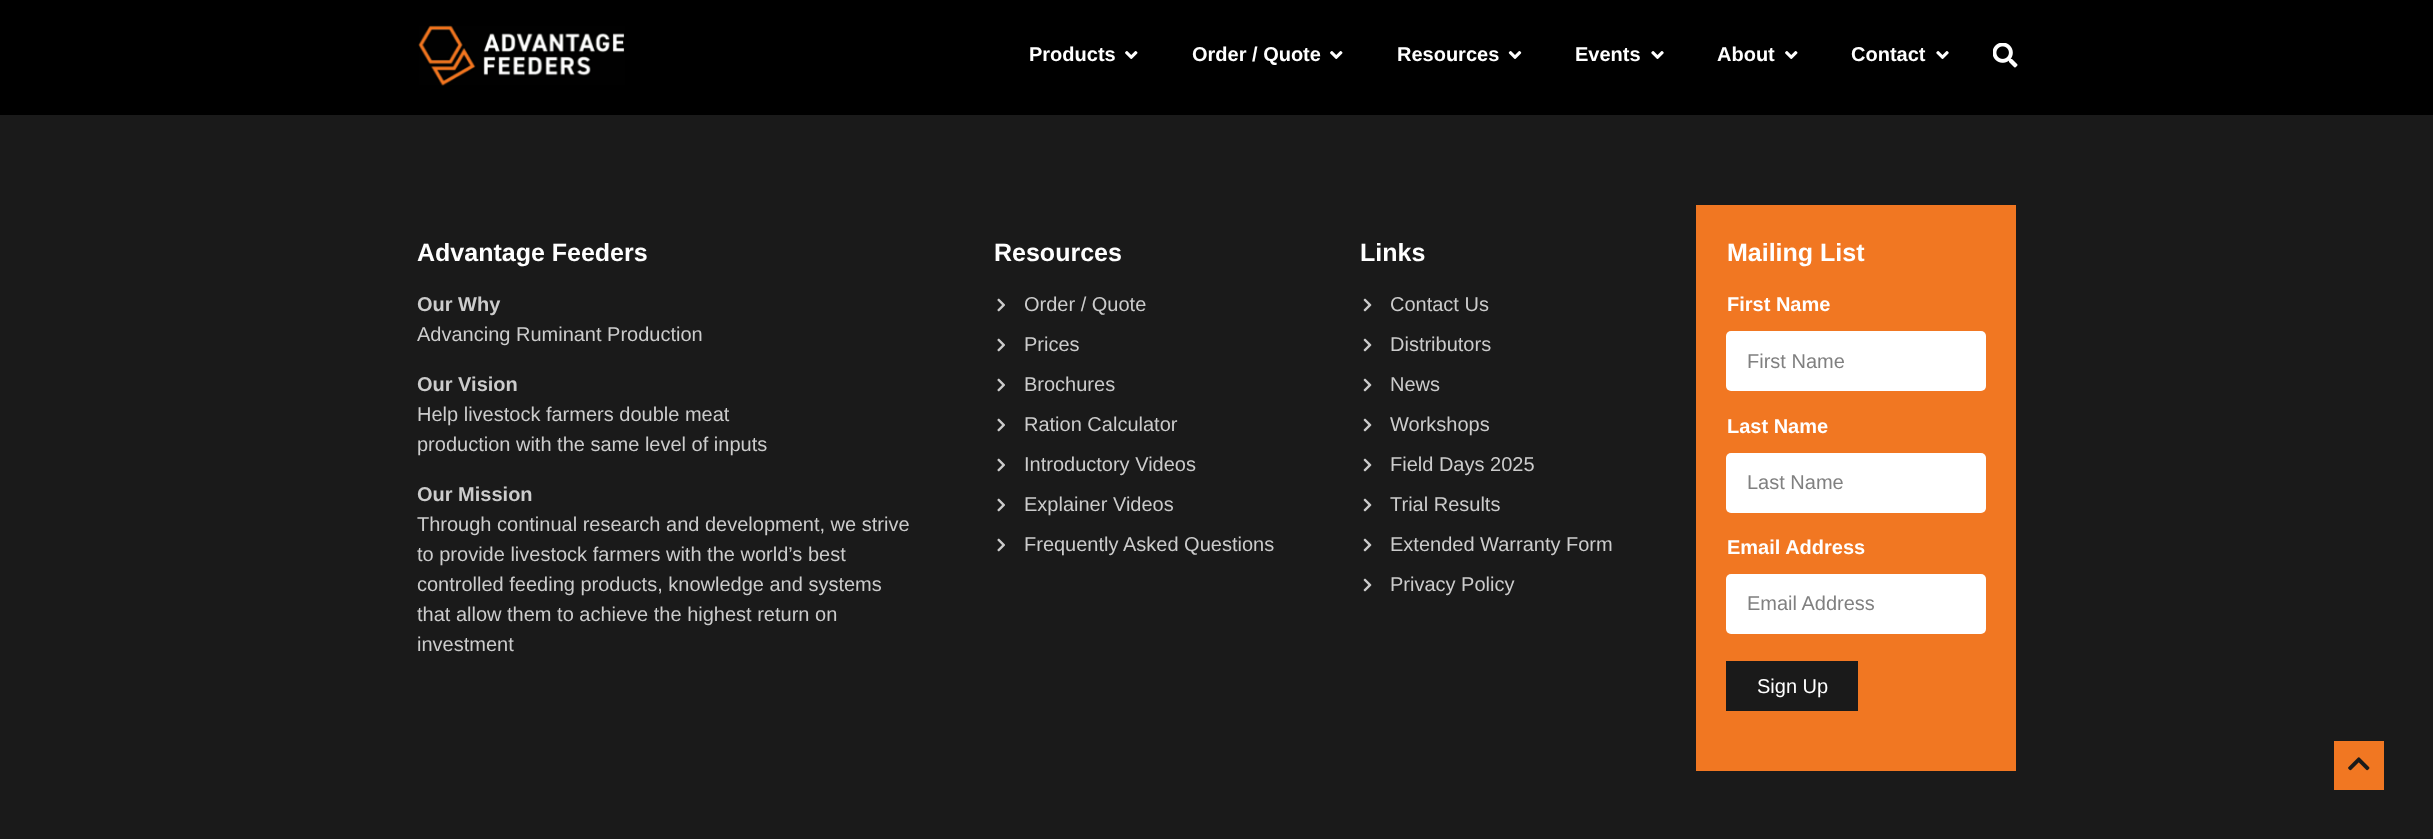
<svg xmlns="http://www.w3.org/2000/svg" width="2433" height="839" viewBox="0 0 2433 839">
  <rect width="100%" height="100%" fill="#000000"/>
  <image x="418" y="25" width="207" height="61" href="img1.png"/>
  <text x="1029" y="61" font-family="Liberation Sans" font-size="20" font-weight="bold" fill="#ffffff">Products</text>
  <image x="1125" y="51" width="13" height="8" href="img2.png"/>
  <text x="1192" y="61" font-family="Liberation Sans" font-size="20" font-weight="bold" fill="#ffffff">Order / Quote</text>
  <image x="1330" y="51" width="13" height="8" href="img2.png"/>
  <text x="1397" y="61" font-family="Liberation Sans" font-size="20" font-weight="bold" fill="#ffffff">Resources</text>
  <image x="1508" y="51" width="14" height="8" href="img3.png"/>
  <text x="1575" y="61" font-family="Liberation Sans" font-size="20" font-weight="bold" fill="#ffffff">Events</text>
  <image x="1651" y="51" width="13" height="8" href="img4.png"/>
  <text x="1717" y="61" font-family="Liberation Sans" font-size="20" font-weight="bold" fill="#ffffff">About</text>
  <image x="1785" y="51" width="13" height="8" href="img2.png"/>
  <text x="1851" y="61" font-family="Liberation Sans" font-size="20" font-weight="bold" fill="#ffffff">Contact</text>
  <image x="1936" y="51" width="13" height="8" href="img4.png"/>
  <image x="1993" y="43" width="25" height="25" href="img5.png"/>
  <rect x="0" y="115" width="2433" height="724" fill="#1a1a1a"/>
  <rect x="2334" y="741" width="50" height="49" fill="#f17722"/>
  <image x="2348" y="757" width="22" height="14" href="img6.png"/>
  <text x="417" y="261" font-family="Liberation Sans" font-size="25" font-weight="bold" fill="#ffffff">Advantage Feeders</text>
  <text x="417" y="311" font-family="Liberation Sans" font-size="20" font-weight="bold" fill="#cccccc">Our Why</text>
  <text x="417" y="341" font-family="Liberation Sans" font-size="20" fill="#cccccc">Advancing Ruminant Production</text>
  <text x="417" y="391" font-family="Liberation Sans" font-size="20" font-weight="bold" fill="#cccccc">Our Vision</text>
  <text x="417" y="421" font-family="Liberation Sans" font-size="20" fill="#cccccc">Help livestock farmers double meat</text>
  <text x="417" y="451" font-family="Liberation Sans" font-size="20" fill="#cccccc">production with the same level of inputs</text>
  <text x="417" y="501" font-family="Liberation Sans" font-size="20" font-weight="bold" fill="#cccccc">Our Mission</text>
  <text x="417" y="531" font-family="Liberation Sans" font-size="20" fill="#cccccc">Through continual research and development, we strive</text>
  <text x="417" y="561" font-family="Liberation Sans" font-size="20" fill="#cccccc">to provide livestock farmers with the world’s best</text>
  <text x="417" y="591" font-family="Liberation Sans" font-size="20" fill="#cccccc">controlled feeding products, knowledge and systems</text>
  <text x="417" y="621" font-family="Liberation Sans" font-size="20" fill="#cccccc">that allow them to achieve the highest return on</text>
  <text x="417" y="651" font-family="Liberation Sans" font-size="20" fill="#cccccc">investment</text>
  <text x="994" y="261" font-family="Liberation Sans" font-size="25" font-weight="bold" fill="#ffffff">Resources</text>
  <image x="997" y="298" width="8" height="14" href="img7.png"/>
  <text x="1024" y="311" font-family="Liberation Sans" font-size="20" fill="#cccccc">Order / Quote</text>
  <image x="997" y="338" width="8" height="14" href="img7.png"/>
  <text x="1024" y="351" font-family="Liberation Sans" font-size="20" fill="#cccccc">Prices</text>
  <image x="997" y="378" width="8" height="14" href="img7.png"/>
  <text x="1024" y="391" font-family="Liberation Sans" font-size="20" fill="#cccccc">Brochures</text>
  <image x="997" y="418" width="8" height="14" href="img7.png"/>
  <text x="1024" y="431" font-family="Liberation Sans" font-size="20" fill="#cccccc">Ration Calculator</text>
  <image x="997" y="458" width="8" height="14" href="img7.png"/>
  <text x="1024" y="471" font-family="Liberation Sans" font-size="20" fill="#cccccc">Introductory Videos</text>
  <image x="997" y="498" width="8" height="14" href="img7.png"/>
  <text x="1024" y="511" font-family="Liberation Sans" font-size="20" fill="#cccccc">Explainer Videos</text>
  <image x="997" y="538" width="8" height="14" href="img7.png"/>
  <text x="1024" y="551" font-family="Liberation Sans" font-size="20" fill="#cccccc">Frequently Asked Questions</text>
  <text x="1360" y="261" font-family="Liberation Sans" font-size="25" font-weight="bold" fill="#ffffff">Links</text>
  <image x="1363" y="298" width="9" height="14" href="img8.png"/>
  <text x="1390" y="311" font-family="Liberation Sans" font-size="20" fill="#cccccc">Contact Us</text>
  <image x="1363" y="338" width="9" height="14" href="img8.png"/>
  <text x="1390" y="351" font-family="Liberation Sans" font-size="20" fill="#cccccc">Distributors</text>
  <image x="1363" y="378" width="9" height="14" href="img8.png"/>
  <text x="1390" y="391" font-family="Liberation Sans" font-size="20" fill="#cccccc">News</text>
  <image x="1363" y="418" width="9" height="14" href="img8.png"/>
  <text x="1390" y="431" font-family="Liberation Sans" font-size="20" fill="#cccccc">Workshops</text>
  <image x="1363" y="458" width="9" height="14" href="img8.png"/>
  <text x="1390" y="471" font-family="Liberation Sans" font-size="20" fill="#cccccc">Field Days 2025</text>
  <image x="1363" y="498" width="9" height="14" href="img8.png"/>
  <text x="1390" y="511" font-family="Liberation Sans" font-size="20" fill="#cccccc">Trial Results</text>
  <image x="1363" y="538" width="9" height="14" href="img8.png"/>
  <text x="1390" y="551" font-family="Liberation Sans" font-size="20" fill="#cccccc">Extended Warranty Form</text>
  <image x="1363" y="578" width="9" height="14" href="img8.png"/>
  <text x="1390" y="591" font-family="Liberation Sans" font-size="20" fill="#cccccc">Privacy Policy</text>
  <rect x="1696" y="205" width="320" height="566" fill="#f17722"/>
  <text x="1727" y="261" font-family="Liberation Sans" font-size="25" font-weight="bold" fill="#ffffff">Mailing List</text>
  <text x="1727" y="311" font-family="Liberation Sans" font-size="20" font-weight="bold" fill="#ffffff">First Name</text>
  <rect x="1726" y="331" width="260" height="60" rx="5" fill="#ffffff"/>
  <text x="1747" y="368" font-family="Liberation Sans" font-size="20" fill="#808080">First Name</text>
  <text x="1727" y="433" font-family="Liberation Sans" font-size="20" font-weight="bold" fill="#ffffff">Last Name</text>
  <rect x="1726" y="453" width="260" height="60" rx="5" fill="#ffffff"/>
  <text x="1747" y="489" font-family="Liberation Sans" font-size="20" fill="#808080">Last Name</text>
  <text x="1727" y="554" font-family="Liberation Sans" font-size="20" font-weight="bold" fill="#ffffff">Email Address</text>
  <rect x="1726" y="574" width="260" height="60" rx="5" fill="#ffffff"/>
  <text x="1747" y="610" font-family="Liberation Sans" font-size="20" fill="#808080">Email Address</text>
  <rect x="1726" y="661" width="132" height="50" fill="#1a1a1a"/>
  <text x="1757" y="693" font-family="Liberation Sans" font-size="20" fill="#ffffff">Sign Up</text>
</svg>
